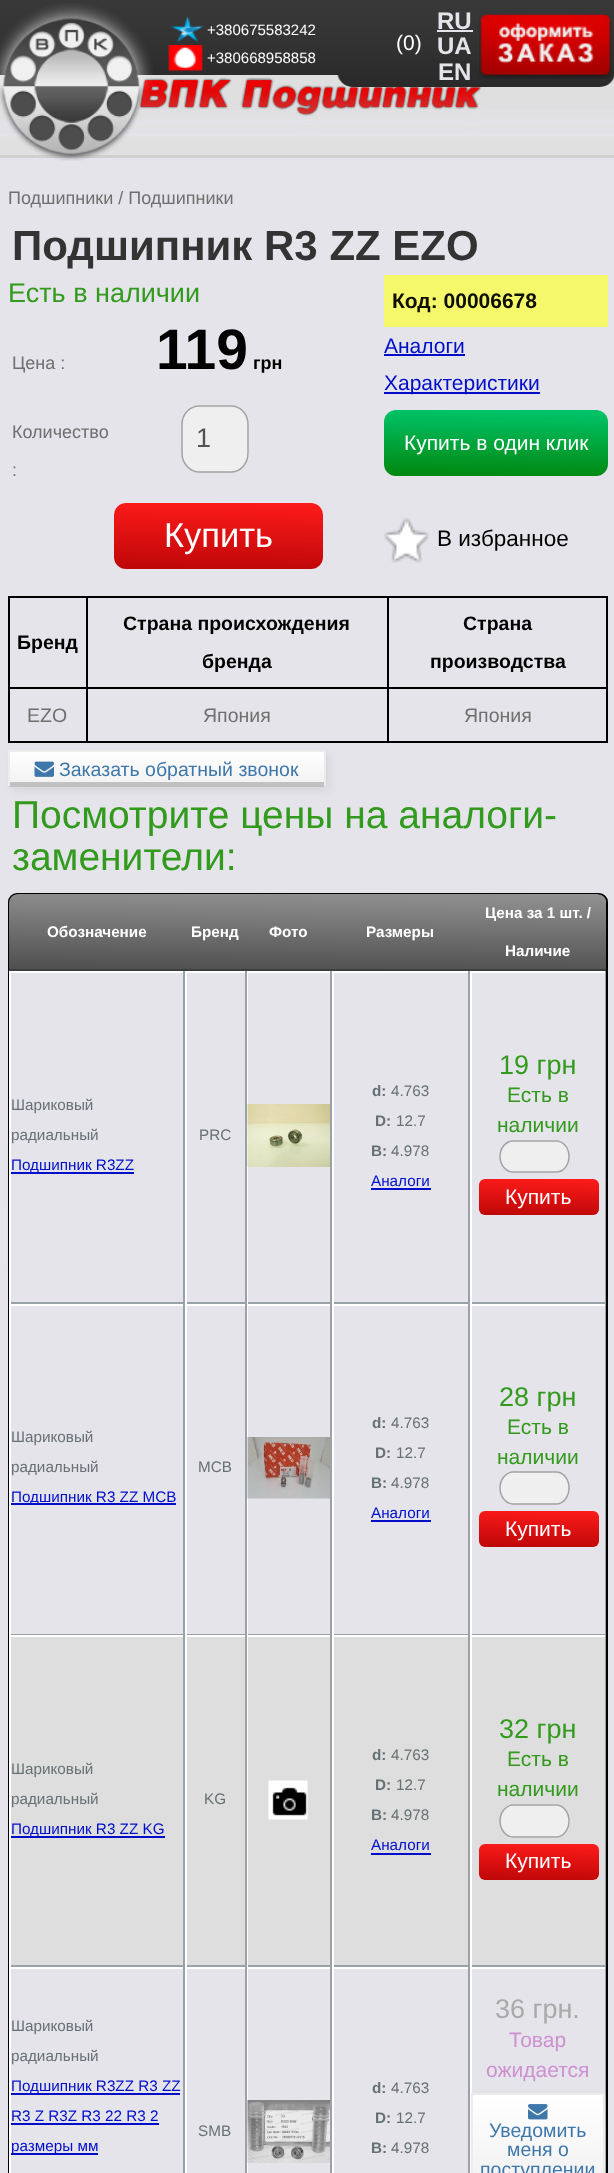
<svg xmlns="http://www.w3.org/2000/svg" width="614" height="2173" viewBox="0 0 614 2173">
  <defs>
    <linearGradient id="g1" gradientUnits="userSpaceOnUse" x1="218" y1="570" x2="219" y2="501"><stop offset="0" stop-color="#be0707"/><stop offset="1" stop-color="#ff0606" stop-opacity="0.91"/></linearGradient>
    <linearGradient id="g2" gradientUnits="userSpaceOnUse" x1="495" y1="477" x2="496" y2="408"><stop offset="0" stop-color="#01880f"/><stop offset="1" stop-color="#00c56c"/></linearGradient>
    <filter id="blur1" x="-50%" y="-200%" width="200%" height="500%"><feGaussianBlur stdDeviation="5"/></filter>
    <linearGradient id="g3" gradientUnits="userSpaceOnUse" x1="167" y1="752" x2="167" y2="786"><stop offset="0" stop-color="#ffffff"/><stop offset="1" stop-color="#f1f1f1"/></linearGradient>
    <clipPath id="clip1"><rect x="9" y="894" width="597" height="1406" rx="8"/></clipPath>
    <linearGradient id="g4" gradientUnits="userSpaceOnUse" x1="307" y1="976" x2="308" y2="889"><stop offset="0" stop-color="#4c4c4c"/><stop offset="1" stop-color="#939393"/></linearGradient>
    <linearGradient id="g5" gradientUnits="userSpaceOnUse" x1="538" y1="1216" x2="539" y2="1178"><stop offset="0" stop-color="#be0707"/><stop offset="1" stop-color="#fe1b1b"/></linearGradient>
    <linearGradient id="g6" gradientUnits="userSpaceOnUse" x1="538" y1="1548" x2="539" y2="1509"><stop offset="0" stop-color="#be0707"/><stop offset="1" stop-color="#fe1b1b"/></linearGradient>
    <linearGradient id="g7" gradientUnits="userSpaceOnUse" x1="538" y1="1881" x2="539" y2="1842"><stop offset="0" stop-color="#be0707"/><stop offset="1" stop-color="#ff0606" stop-opacity="0.91"/></linearGradient>
    <clipPath id="clip2"><rect x="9" y="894" width="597" height="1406" rx="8"/></clipPath>
    <linearGradient id="g8" gradientUnits="userSpaceOnUse" x1="538" y1="2094" x2="538" y2="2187"><stop offset="0" stop-color="#ffffff"/><stop offset="1" stop-color="#f1f1f1"/></linearGradient>
  </defs>
  <rect width="100%" height="100%" fill="#e5e4ea"/>
  <rect x="0" y="155" width="614" height="3" fill="#d0d0d0"/>
  <image x="0" y="0" width="614" height="75" href="img1.png"/>
  <rect x="0" y="136" width="614" height="19" fill="#e0e0e0"/>
  <image x="0" y="75" width="614" height="62" href="img7.png"/>
  <image x="0" y="3" width="153" height="158" href="img2.png"/>
  <image x="170" y="16" width="34" height="26" href="img3.png"/>
  <text x="207" y="35" font-family="Liberation Sans" font-size="15" fill="#ffffff">+380675583242</text>
  <image x="168" y="45" width="35" height="26" href="img4.png"/>
  <text x="207" y="63" font-family="Liberation Sans" font-size="15" fill="#ffffff">+380668958858</text>
  <image x="337" y="15" width="277" height="72" href="img5.png"/>
  <text x="396" y="50" font-family="Liberation Sans" font-size="21" fill="#ffffff">(0)</text>
  <image x="479" y="14" width="133" height="65" href="img6.png"/>
  <text x="437" y="29" font-family="Liberation Sans" font-size="24" font-weight="bold" fill="#e5e4ea">RU</text>
  <rect x="437" y="30" width="36" height="2" fill="#e5e4ea"/>
  <text x="437" y="54" font-family="Liberation Sans" font-size="24" font-weight="bold" fill="#e5e4ea">UA</text>
  <text x="438" y="80" font-family="Liberation Sans" font-size="24" font-weight="bold" fill="#e5e4ea">EN</text>
  <text x="8" y="204" font-family="Liberation Sans" font-size="18" fill="#6f6f6f">Подшипники / Подшипники</text>
  <text x="12" y="260" font-family="Liberation Sans" font-size="42" font-weight="bold" fill="#333333">Подшипник R3 ZZ EZO</text>
  <text x="8" y="302" font-family="Liberation Sans" font-size="27" fill="#329a1c">Есть в наличии</text>
  <text x="12" y="369" font-family="Liberation Sans" font-size="18" fill="#6f6f6f">Цена :</text>
  <text x="156" y="369" font-family="Liberation Sans" font-size="57" font-weight="bold" fill="#000000">119</text>
  <text x="253" y="369" font-family="Liberation Sans" font-size="18" font-weight="bold" fill="#000000">грн</text>
  <text x="12" y="438" font-family="Liberation Sans" font-size="18" fill="#6f6f6f">Количество</text>
  <text x="12" y="476" font-family="Liberation Sans" font-size="18" fill="#6f6f6f">:</text>
  <path d="M200 405H231C241 405 249 414 249 424V453C249 464 241 472 231 472H200C190 472 182 464 182 453V424C182 414 190 405 200 405Z" fill="#efefef"/>
  <path d="M199.5 406H231C240.5 406 248 414 248 424.5V453C248 463.5 240.5 472 231 472H199.5C190 472 182 463.5 182 453V424.5C182 414 190 406 199.5 406Z" fill="none" stroke="#a3a3a3" stroke-width="1.5"/>
  <text x="196" y="447" font-family="Liberation Sans" font-size="27" fill="#525252">1</text>
  <rect x="114" y="503" width="209" height="66" rx="12" fill="#efefef"/>
  <rect x="114" y="503" width="209" height="66" rx="12" fill="url(#g1)"/>
  <text x="164" y="547" font-family="Liberation Sans" font-size="34.5" fill="#ffffff">Купить</text>
  <rect x="384" y="275" width="224" height="52" fill="#f5f86a"/>
  <text x="392" y="308" font-family="Liberation Sans" font-size="21" font-weight="bold" fill="#0f0f04">Код: 00006678</text>
  <text x="384" y="353" font-family="Liberation Sans" font-size="21" fill="#000eca">Аналоги</text>
  <rect x="384" y="354" width="81" height="2" fill="#000eca"/>
  <rect x="384" y="392" width="156" height="2" fill="#000eca"/>
  <text x="384" y="390" font-family="Liberation Sans" font-size="21" fill="#000eca">Характеристики</text>
  <rect x="384" y="410" width="224" height="66" rx="12" fill="url(#g2)"/>
  <text x="404" y="450" font-family="Liberation Sans" font-size="21" fill="#ffffff">Купить в один клик</text>
  <image x="384" y="517" width="45" height="46" href="img8.png"/>
  <text x="437" y="546" font-family="Liberation Sans" font-size="22.5" fill="#000000">В избранное</text>
  <rect x="8" y="596" width="600" height="2" fill="#000000"/>
  <rect x="606" y="596" width="2" height="147" fill="#000000"/>
  <rect x="8" y="741" width="600" height="2" fill="#000000"/>
  <rect x="8" y="596" width="2" height="147" fill="#000000"/>
  <text x="17" y="649" font-family="Liberation Sans" font-size="19.5" font-weight="bold" fill="#000000">Бренд</text>
  <rect x="387" y="687" width="221" height="2" fill="#000000"/>
  <rect x="387" y="687" width="2" height="56" fill="#000000"/>
  <rect x="86" y="687" width="303" height="2" fill="#000000"/>
  <rect x="86" y="687" width="2" height="56" fill="#000000"/>
  <rect x="8" y="687" width="79" height="2" fill="#000000"/>
  <rect x="86" y="596" width="2" height="93" fill="#000000"/>
  <text x="123" y="630" font-family="Liberation Sans" font-size="19.5" font-weight="bold" fill="#000000">Страна происхождения</text>
  <text x="202" y="668" font-family="Liberation Sans" font-size="19.5" font-weight="bold" fill="#000000">бренда</text>
  <rect x="387" y="596" width="2" height="93" fill="#000000"/>
  <text x="463" y="630" font-family="Liberation Sans" font-size="19.5" font-weight="bold" fill="#000000">Страна</text>
  <text x="430" y="668" font-family="Liberation Sans" font-size="19.5" font-weight="bold" fill="#000000">производства</text>
  <text x="27" y="722" font-family="Liberation Sans" font-size="19.5" fill="#6f6f6f">EZO</text>
  <text x="203" y="722" font-family="Liberation Sans" font-size="19.5" fill="#6f6f6f">Япония</text>
  <text x="464" y="722" font-family="Liberation Sans" font-size="19.5" fill="#6f6f6f">Япония</text>
  <rect x="12" y="755" width="318" height="36" fill="#c8c8c8" fill-opacity="0.5" filter="url(#blur1)"/>
  <rect x="10" y="752" width="314" height="30" fill="url(#g3)"/>
  <rect x="9" y="782" width="315" height="5" fill="#c1c1c1"/>
  <rect x="8" y="750" width="318" height="2" fill="#ececec"/>
  <rect x="324" y="750" width="2" height="36" fill="#ececec"/>
  <rect x="8" y="750" width="2" height="36" fill="#ececec"/>
  <image x="34" y="761" width="20" height="16" href="img9.png"/>
  <text x="59" y="776" font-family="Liberation Sans" font-size="19.5" fill="#3e77aa">Заказать обратный звонок</text>
  <text x="12" y="828" font-family="Liberation Sans" font-size="39" fill="#329a1c">Посмотрите цены на аналоги-</text>
  <text x="12" y="870" font-family="Liberation Sans" font-size="39" fill="#329a1c">заменители:</text>
  <rect x="9" y="894" width="598" height="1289" rx="8" fill="none" stroke="#000000" stroke-width="2"/>
  <g clip-path="url(#clip1)">
    <path d="M18 894H597C602 894 606 898 606 903V971H9V903C9 898 13 894 18 894Z" fill="url(#g4)"/>
  </g>
  <rect x="9" y="969" width="176" height="2" fill="#3a3e40"/>
  <text x="47" y="937" font-family="Liberation Sans" font-size="15.25" font-weight="bold" fill="#ffffff">Обозначение</text>
  <text x="191" y="937" font-family="Liberation Sans" font-size="15.25" font-weight="bold" fill="#ffffff">Бренд</text>
  <rect x="185" y="969" width="421" height="2" fill="#3a3e40"/>
  <text x="269" y="937" font-family="Liberation Sans" font-size="15.25" font-weight="bold" fill="#ffffff">Фото</text>
  <text x="366" y="937" font-family="Liberation Sans" font-size="15.25" font-weight="bold" fill="#ffffff">Размеры</text>
  <text x="485" y="918" font-family="Liberation Sans" font-size="15.25" font-weight="bold" fill="#ffffff">Цена за 1 шт. /</text>
  <text x="505" y="956" font-family="Liberation Sans" font-size="15.25" font-weight="bold" fill="#ffffff">Наличие</text>
  <rect x="185" y="971" width="421" height="2" fill="#ffffff"/>
  <rect x="330" y="971" width="2" height="333" fill="#99a3a7"/>
  <rect x="246" y="1302" width="86" height="2" fill="#99a3a7"/>
  <rect x="247" y="971" width="1" height="333" fill="#ffffff"/>
  <image x="247" y="1104" width="83" height="63" href="img10.png"/>
  <rect x="9" y="971" width="176" height="2" fill="#ffffff"/>
  <rect x="183" y="971" width="2" height="333" fill="#99a3a7"/>
  <rect x="9" y="1302" width="176" height="2" fill="#99a3a7"/>
  <rect x="9" y="971" width="2" height="333" fill="#ffffff"/>
  <text x="11" y="1110" font-family="Liberation Sans" font-size="15.25" fill="#677174">Шариковый</text>
  <text x="11" y="1140" font-family="Liberation Sans" font-size="15.25" fill="#677174">радиальный</text>
  <rect x="11" y="1172" width="123" height="2" fill="#000eca"/>
  <text x="11" y="1170" font-family="Liberation Sans" font-size="15.25" fill="#000eca">Подшипник R3ZZ</text>
  <rect x="185" y="1304" width="421" height="2" fill="#ffffff"/>
  <rect x="330" y="1304" width="2" height="331" fill="#99a3a7"/>
  <rect x="246" y="1634" width="86" height="1" fill="#99a3a7"/>
  <rect x="185" y="1635" width="421" height="2" fill="#ffffff"/>
  <rect x="330" y="1635" width="2" height="332" fill="#99a3a7"/>
  <rect x="246" y="1965" width="86" height="2" fill="#99a3a7"/>
  <rect x="185" y="1967" width="421" height="2" fill="#ffffff"/>
  <rect x="245" y="971" width="2" height="1202" fill="#99a3a7"/>
  <rect x="185" y="1302" width="61" height="2" fill="#99a3a7"/>
  <rect x="185" y="971" width="2" height="333" fill="#ffffff"/>
  <text x="199" y="1140" font-family="Liberation Sans" font-size="15.25" fill="#677174">PRC</text>
  <rect x="468" y="971" width="2" height="333" fill="#99a3a7"/>
  <rect x="332" y="1302" width="138" height="2" fill="#99a3a7"/>
  <rect x="332" y="971" width="2" height="333" fill="#ffffff"/>
  <text x="372" y="1096" font-family="Liberation Sans" font-size="15.25" font-weight="bold" fill="#677174">d:</text>
  <text x="391" y="1096" font-family="Liberation Sans" font-size="15.25" fill="#677174">4.763</text>
  <text x="375" y="1126" font-family="Liberation Sans" font-size="15.25" font-weight="bold" fill="#677174">D:</text>
  <text x="396" y="1126" font-family="Liberation Sans" font-size="15.25" fill="#677174">12.7</text>
  <text x="371" y="1156" font-family="Liberation Sans" font-size="15.25" font-weight="bold" fill="#677174">B:</text>
  <text x="391" y="1156" font-family="Liberation Sans" font-size="15.25" fill="#677174">4.978</text>
  <text x="371" y="1186" font-family="Liberation Sans" font-size="15.25" fill="#000eca">Аналоги</text>
  <rect x="371" y="1188" width="60" height="2" fill="#000eca"/>
  <rect x="605" y="971" width="1" height="333" fill="#99a3a7"/>
  <rect x="470" y="1302" width="136" height="2" fill="#99a3a7"/>
  <rect x="470" y="971" width="2" height="333" fill="#ffffff"/>
  <text x="499" y="1074" font-family="Liberation Sans" font-size="27" fill="#329a1c">19 грн</text>
  <text x="507" y="1102" font-family="Liberation Sans" font-size="21" fill="#329a1c">Есть в</text>
  <text x="497" y="1132" font-family="Liberation Sans" font-size="21" fill="#329a1c">наличии</text>
  <path d="M513 1140H556C564 1140 570 1147 570 1156C570 1166 564 1173 556 1173H513C506 1173 500 1166 500 1156C500 1147 506 1140 513 1140Z" fill="#efefef"/>
  <path d="M513 1141H556C563.5 1141 569 1148 569 1156.5C569 1165 563.5 1172 556 1172H513C506 1172 500 1165 500 1156.5C500 1148 506 1141 513 1141Z" fill="none" stroke="#a3a3a3" stroke-width="1.5"/>
  <rect x="479" y="1179" width="120" height="36" rx="6" fill="url(#g5)"/>
  <text x="505" y="1204" font-family="Liberation Sans" font-size="21" fill="#ffffff">Купить</text>
  <rect x="247" y="1304" width="1" height="331" fill="#ffffff"/>
  <image x="247" y="1437" width="83" height="62" href="img11.png"/>
  <rect x="9" y="1304" width="176" height="2" fill="#ffffff"/>
  <rect x="183" y="1304" width="2" height="331" fill="#99a3a7"/>
  <rect x="9" y="1634" width="176" height="1" fill="#99a3a7"/>
  <rect x="9" y="1304" width="2" height="331" fill="#ffffff"/>
  <text x="11" y="1442" font-family="Liberation Sans" font-size="15.25" fill="#677174">Шариковый</text>
  <text x="11" y="1472" font-family="Liberation Sans" font-size="15.25" fill="#677174">радиальный</text>
  <rect x="11" y="1503" width="165" height="2" fill="#000eca"/>
  <text x="11" y="1502" font-family="Liberation Sans" font-size="15.25" fill="#000eca">Подшипник R3 ZZ MCB</text>
  <rect x="185" y="1634" width="61" height="1" fill="#99a3a7"/>
  <rect x="185" y="1304" width="2" height="331" fill="#ffffff"/>
  <text x="198" y="1472" font-family="Liberation Sans" font-size="15.25" fill="#677174">MCB</text>
  <rect x="468" y="1304" width="2" height="331" fill="#99a3a7"/>
  <rect x="332" y="1634" width="138" height="1" fill="#99a3a7"/>
  <rect x="332" y="1304" width="2" height="331" fill="#ffffff"/>
  <text x="372" y="1428" font-family="Liberation Sans" font-size="15.25" font-weight="bold" fill="#677174">d:</text>
  <text x="391" y="1428" font-family="Liberation Sans" font-size="15.25" fill="#677174">4.763</text>
  <text x="375" y="1458" font-family="Liberation Sans" font-size="15.25" font-weight="bold" fill="#677174">D:</text>
  <text x="396" y="1458" font-family="Liberation Sans" font-size="15.25" fill="#677174">12.7</text>
  <text x="371" y="1488" font-family="Liberation Sans" font-size="15.25" font-weight="bold" fill="#677174">B:</text>
  <text x="391" y="1488" font-family="Liberation Sans" font-size="15.25" fill="#677174">4.978</text>
  <text x="371" y="1518" font-family="Liberation Sans" font-size="15.25" fill="#000eca">Аналоги</text>
  <rect x="371" y="1520" width="60" height="2" fill="#000eca"/>
  <rect x="605" y="1304" width="1" height="331" fill="#99a3a7"/>
  <rect x="470" y="1634" width="136" height="1" fill="#99a3a7"/>
  <rect x="470" y="1304" width="2" height="331" fill="#ffffff"/>
  <text x="499" y="1406" font-family="Liberation Sans" font-size="27" fill="#329a1c">28 грн</text>
  <text x="507" y="1434" font-family="Liberation Sans" font-size="21" fill="#329a1c">Есть в</text>
  <text x="497" y="1464" font-family="Liberation Sans" font-size="21" fill="#329a1c">наличии</text>
  <path d="M513 1472H556C564 1472 570 1479 570 1488C570 1497 564 1504 556 1504H513C506 1504 500 1497 500 1488C500 1479 506 1472 513 1472Z" fill="#efefef"/>
  <path d="M513 1472H556C563.5 1472 569 1479.5 569 1488C569 1496.5 563.5 1504 556 1504H513C506 1504 500 1496.5 500 1488C500 1479.5 506 1472 513 1472Z" fill="none" stroke="#a3a3a3" stroke-width="1.5"/>
  <rect x="479" y="1511" width="120" height="36" rx="6" fill="url(#g6)"/>
  <text x="505" y="1536" font-family="Liberation Sans" font-size="21" fill="#ffffff">Купить</text>
  <rect x="248" y="1637" width="82" height="328" fill="#dedede"/>
  <rect x="247" y="1635" width="1" height="332" fill="#ffffff"/>
  <image x="268" y="1780" width="40" height="40" href="img12.png"/>
  <rect x="11" y="1637" width="172" height="328" fill="#dedede"/>
  <rect x="9" y="1635" width="176" height="2" fill="#ffffff"/>
  <rect x="183" y="1635" width="2" height="332" fill="#99a3a7"/>
  <rect x="9" y="1965" width="176" height="2" fill="#99a3a7"/>
  <rect x="9" y="1635" width="2" height="332" fill="#ffffff"/>
  <text x="11" y="1774" font-family="Liberation Sans" font-size="15.25" fill="#677174">Шариковый</text>
  <text x="11" y="1804" font-family="Liberation Sans" font-size="15.25" fill="#677174">радиальный</text>
  <rect x="11" y="1836" width="154" height="2" fill="#000eca"/>
  <text x="11" y="1834" font-family="Liberation Sans" font-size="15.25" fill="#000eca">Подшипник R3 ZZ KG</text>
  <rect x="187" y="1637" width="58" height="328" fill="#dedede"/>
  <rect x="185" y="1965" width="61" height="2" fill="#99a3a7"/>
  <rect x="185" y="1635" width="2" height="538" fill="#ffffff"/>
  <text x="204" y="1804" font-family="Liberation Sans" font-size="15.25" fill="#677174">KG</text>
  <rect x="334" y="1637" width="134" height="328" fill="#dedede"/>
  <rect x="468" y="1635" width="2" height="332" fill="#99a3a7"/>
  <rect x="332" y="1965" width="138" height="2" fill="#99a3a7"/>
  <rect x="332" y="1635" width="2" height="332" fill="#ffffff"/>
  <text x="372" y="1760" font-family="Liberation Sans" font-size="15.25" font-weight="bold" fill="#677174">d:</text>
  <text x="391" y="1760" font-family="Liberation Sans" font-size="15.25" fill="#677174">4.763</text>
  <text x="375" y="1790" font-family="Liberation Sans" font-size="15.25" font-weight="bold" fill="#677174">D:</text>
  <text x="396" y="1790" font-family="Liberation Sans" font-size="15.25" fill="#677174">12.7</text>
  <text x="371" y="1820" font-family="Liberation Sans" font-size="15.25" font-weight="bold" fill="#677174">B:</text>
  <text x="391" y="1820" font-family="Liberation Sans" font-size="15.25" fill="#677174">4.978</text>
  <text x="371" y="1850" font-family="Liberation Sans" font-size="15.25" fill="#000eca">Аналоги</text>
  <rect x="371" y="1853" width="60" height="2" fill="#000eca"/>
  <rect x="472" y="1637" width="133" height="328" fill="#dedede"/>
  <rect x="605" y="1635" width="1" height="332" fill="#99a3a7"/>
  <rect x="470" y="1965" width="136" height="2" fill="#99a3a7"/>
  <rect x="470" y="1635" width="2" height="332" fill="#ffffff"/>
  <text x="499" y="1738" font-family="Liberation Sans" font-size="27" fill="#329a1c">32 грн</text>
  <text x="507" y="1766" font-family="Liberation Sans" font-size="21" fill="#329a1c">Есть в</text>
  <text x="497" y="1796" font-family="Liberation Sans" font-size="21" fill="#329a1c">наличии</text>
  <path d="M513 1804H556C564 1804 570 1812 570 1821C570 1830 564 1838 556 1838H513C506 1838 500 1830 500 1821C500 1812 506 1804 513 1804Z" fill="#efefef"/>
  <path d="M513 1805H556C563.5 1805 569 1812.5 569 1821C569 1829.5 563.5 1837 556 1837H513C506 1837 500 1829.5 500 1821C500 1812.5 506 1805 513 1805Z" fill="none" stroke="#a3a3a3" stroke-width="1.5"/>
  <rect x="479" y="1844" width="120" height="36" rx="6" fill="#efefef"/>
  <rect x="479" y="1844" width="120" height="36" rx="6" fill="url(#g7)"/>
  <text x="505" y="1868" font-family="Liberation Sans" font-size="21" fill="#ffffff">Купить</text>
  <rect x="330" y="1967" width="2" height="206" fill="#99a3a7"/>
  <rect x="247" y="1967" width="1" height="206" fill="#ffffff"/>
  <image x="247" y="2100" width="83" height="63" href="img13.png"/>
  <rect x="9" y="1967" width="176" height="2" fill="#ffffff"/>
  <rect x="183" y="1967" width="2" height="206" fill="#99a3a7"/>
  <rect x="9" y="1967" width="2" height="206" fill="#ffffff"/>
  <text x="11" y="2031" font-family="Liberation Sans" font-size="15.25" fill="#677174">Шариковый</text>
  <text x="11" y="2061" font-family="Liberation Sans" font-size="15.25" fill="#677174">радиальный</text>
  <rect x="11" y="2093" width="169" height="2" fill="#000eca"/>
  <text x="11" y="2091" font-family="Liberation Sans" font-size="15.25" fill="#000eca">Подшипник R3ZZ R3 ZZ</text>
  <text x="11" y="2121" font-family="Liberation Sans" font-size="15.25" fill="#000eca">R3 Z R3Z R3 22 R3 2</text>
  <rect x="11" y="2123" width="148" height="2" fill="#000eca"/>
  <rect x="11" y="2153" width="87" height="2" fill="#000eca"/>
  <text x="11" y="2151" font-family="Liberation Sans" font-size="15.25" fill="#000eca">размеры мм</text>
  <text x="198" y="2136" font-family="Liberation Sans" font-size="15.25" fill="#677174">SMB</text>
  <rect x="468" y="1967" width="2" height="206" fill="#99a3a7"/>
  <rect x="332" y="1967" width="2" height="206" fill="#ffffff"/>
  <text x="372" y="2093" font-family="Liberation Sans" font-size="15.25" font-weight="bold" fill="#677174">d:</text>
  <text x="391" y="2093" font-family="Liberation Sans" font-size="15.25" fill="#677174">4.763</text>
  <text x="375" y="2123" font-family="Liberation Sans" font-size="15.25" font-weight="bold" fill="#677174">D:</text>
  <text x="396" y="2123" font-family="Liberation Sans" font-size="15.25" fill="#677174">12.7</text>
  <text x="371" y="2153" font-family="Liberation Sans" font-size="15.25" font-weight="bold" fill="#677174">B:</text>
  <text x="391" y="2153" font-family="Liberation Sans" font-size="15.25" fill="#677174">4.978</text>
  <rect x="605" y="1967" width="1" height="206" fill="#99a3a7"/>
  <rect x="470" y="1967" width="2" height="206" fill="#ffffff"/>
  <text x="495" y="2018" font-family="Liberation Sans" font-size="27" fill="#a9a9a9">36 грн.</text>
  <text x="509" y="2047" font-family="Liberation Sans" font-size="21" fill="#cd90d0">Товар</text>
  <g clip-path="url(#clip2)">
    <rect x="476" y="2097" width="133" height="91" fill="#c8c8c8" fill-opacity="0.5" filter="url(#blur1)"/>
  </g>
  <text x="486" y="2077" font-family="Liberation Sans" font-size="21" fill="#cd90d0">ожидается</text>
  <rect x="473" y="2095" width="130" height="78" fill="url(#g8)"/>
  <rect x="471" y="2093" width="134" height="2" fill="#ececec"/>
  <rect x="603" y="2093" width="2" height="80" fill="#ececec"/>
  <rect x="471" y="2093" width="2" height="80" fill="#ececec"/>
  <image x="528" y="2104" width="20" height="16" href="img14.png"/>
  <text x="489" y="2137" font-family="Liberation Sans" font-size="19.5" fill="#3e77aa">Уведомить</text>
  <text x="507" y="2156" font-family="Liberation Sans" font-size="19.5" fill="#3e77aa">меня о</text>
  <text x="480" y="2176" font-family="Liberation Sans" font-size="19.5" fill="#3e77aa">поступлении</text>
</svg>
